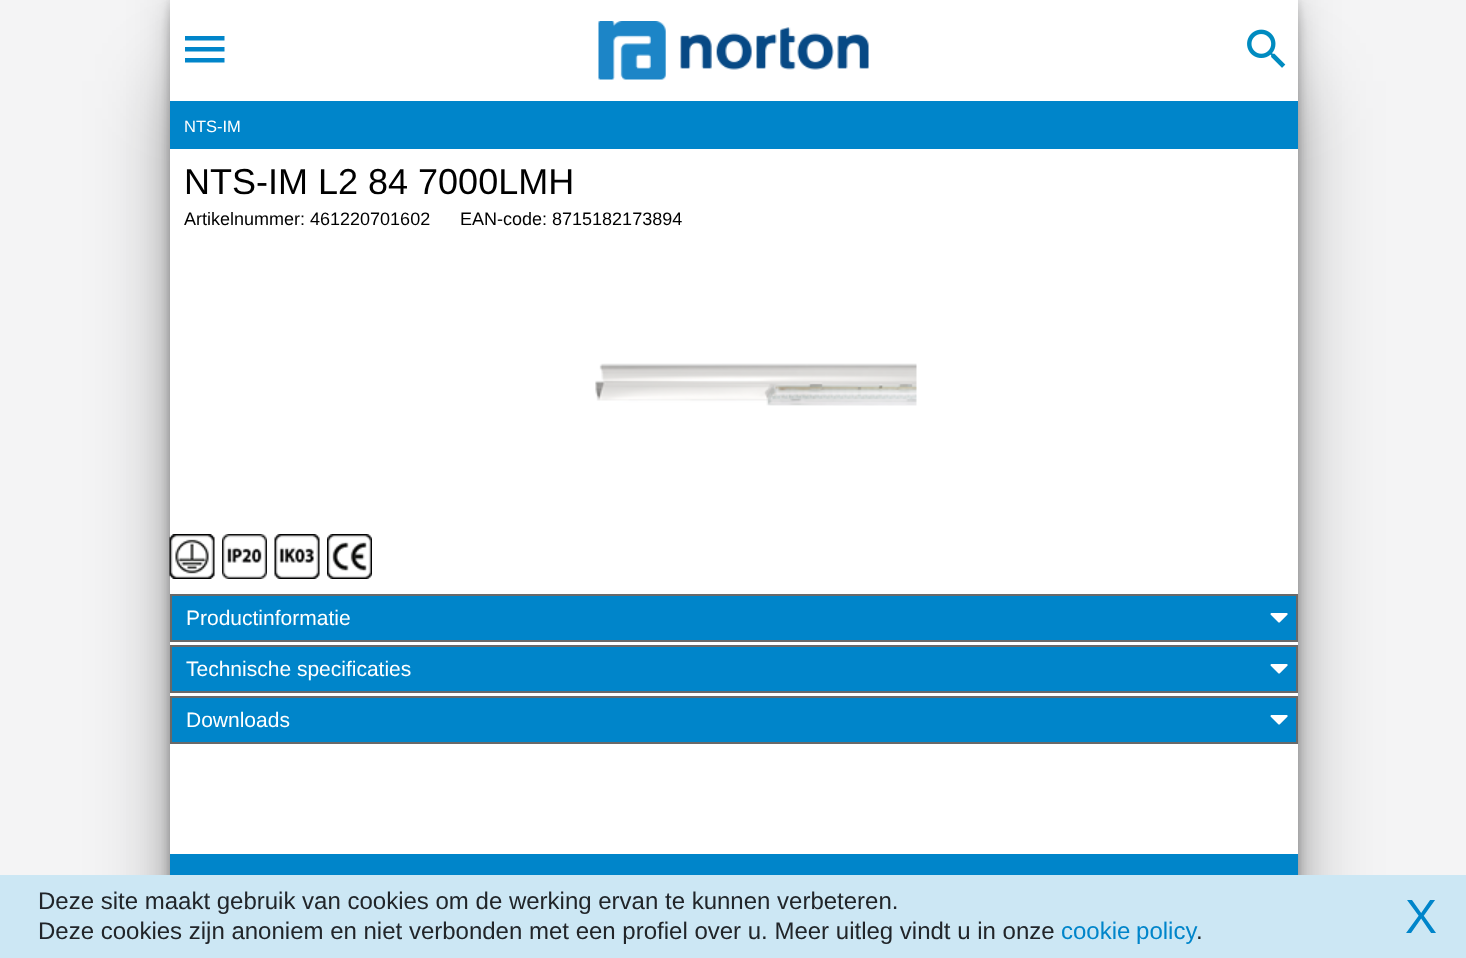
<svg xmlns="http://www.w3.org/2000/svg" width="1466" height="958" viewBox="0 0 1466 958">
  <defs>
    <filter id="blur1" x="-50%" y="-200%" width="200%" height="500%"><feGaussianBlur stdDeviation="4"/></filter>
    <filter id="blur2" x="-50%" y="-200%" width="200%" height="500%"><feGaussianBlur stdDeviation="10"/></filter>
    <filter id="blur3" x="-50%" y="-200%" width="200%" height="500%"><feGaussianBlur stdDeviation="4.5"/></filter>
    <filter id="blur4" x="-50%" y="-200%" width="200%" height="500%"><feGaussianBlur stdDeviation="22.5"/></filter>
    <filter id="blur5" x="-50%" y="-200%" width="200%" height="500%"><feGaussianBlur stdDeviation="41"/></filter>
  </defs>
  <rect width="100%" height="100%" fill="#f4f4f5"/>
  <rect x="170" y="-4" width="1128" height="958" fill="#000000" fill-opacity="0.09" filter="url(#blur1)"/>
  <rect x="170" y="18" width="1128" height="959" fill="#000000" fill-opacity="0.17" filter="url(#blur2)"/>
  <rect x="170" y="6" width="1128" height="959" fill="#000000" fill-opacity="0.12" filter="url(#blur3)"/>
  <rect x="170" y="-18" width="1128" height="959" fill="#000000" fill-opacity="0.12" filter="url(#blur4)"/>
  <rect x="170" y="81" width="1128" height="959" fill="#000000" fill-opacity="0.25" filter="url(#blur5)"/>
  <rect x="170" y="0" width="1128" height="854" fill="#ffffff"/>
  <rect x="170" y="101" width="1128" height="48" fill="#0085ca"/>
  <path d="M185 62.5H224.5V58H185ZM185 51.5H224.5V47H185ZM185 36V40.5H224.5V36Z" fill="#0085ca"/>
  <image x="598" y="21" width="271" height="59" href="img1.png"/>
  <image x="1247" y="29" width="39" height="39" href="img2.png"/>
  <text x="184" y="132" font-family="Liberation Sans" font-size="16.5" fill="#ffffff">NTS-IM</text>
  <text x="184" y="194" font-family="Liberation Sans" font-size="36" fill="#000000">NTS-IM L2 84 7000LMH</text>
  <text x="184" y="225" font-family="Liberation Sans" font-size="18" fill="#000000">Artikelnummer: 461220701602</text>
  <text x="460" y="225" font-family="Liberation Sans" font-size="18" fill="#000000">EAN-code: 8715182173894</text>
  <image x="595" y="363" width="322" height="43" href="img3.png"/>
  <image x="169" y="534" width="46" height="45" href="img4.png"/>
  <image x="222" y="534" width="45" height="45" href="img5.png"/>
  <image x="274" y="534" width="46" height="45" href="img6.png"/>
  <image x="327" y="534" width="45" height="45" href="img7.png"/>
  <rect x="171" y="595" width="1126" height="46" fill="#0085ca" stroke="#696969" stroke-width="2"/>
  <text x="186" y="625" font-family="Liberation Sans" font-size="21" fill="#ffffff">Productinformatie</text>
  <image x="1270" y="613" width="18" height="10" href="img8.png"/>
  <rect x="171" y="646" width="1126" height="46" fill="#0085ca" stroke="#696969" stroke-width="2"/>
  <text x="186" y="676" font-family="Liberation Sans" font-size="21" fill="#ffffff">Technische specificaties</text>
  <image x="1270" y="664" width="18" height="10" href="img8.png"/>
  <rect x="171" y="697" width="1126" height="46" fill="#0085ca" stroke="#696969" stroke-width="2"/>
  <text x="186" y="727" font-family="Liberation Sans" font-size="21" fill="#ffffff">Downloads</text>
  <image x="1270" y="715" width="18" height="10" href="img8.png"/>
  <rect x="170" y="854" width="1128" height="21" fill="#0085ca"/>
  <rect x="0" y="875" width="1466" height="83" fill="#cce7f4"/>
  <text x="38" y="909" font-family="Liberation Sans" font-size="24" fill="#212529">Deze site maakt gebruik van cookies om de werking ervan te kunnen verbeteren.</text>
  <text x="38" y="939" font-family="Liberation Sans" font-size="24" fill="#212529">Deze cookies zijn anoniem en niet verbonden met een profiel over u. Meer uitleg vindt u in onze</text>
  <text x="1061" y="939" word-spacing="-1" font-family="Liberation Sans" font-size="24" fill="#0085ca">cookie policy</text>
  <text x="1196" y="939" font-family="Liberation Sans" font-size="24" fill="#212529">.</text>
  <text x="1405" y="933" font-family="Liberation Sans" font-size="48" fill="#0085ca">X</text>
</svg>
